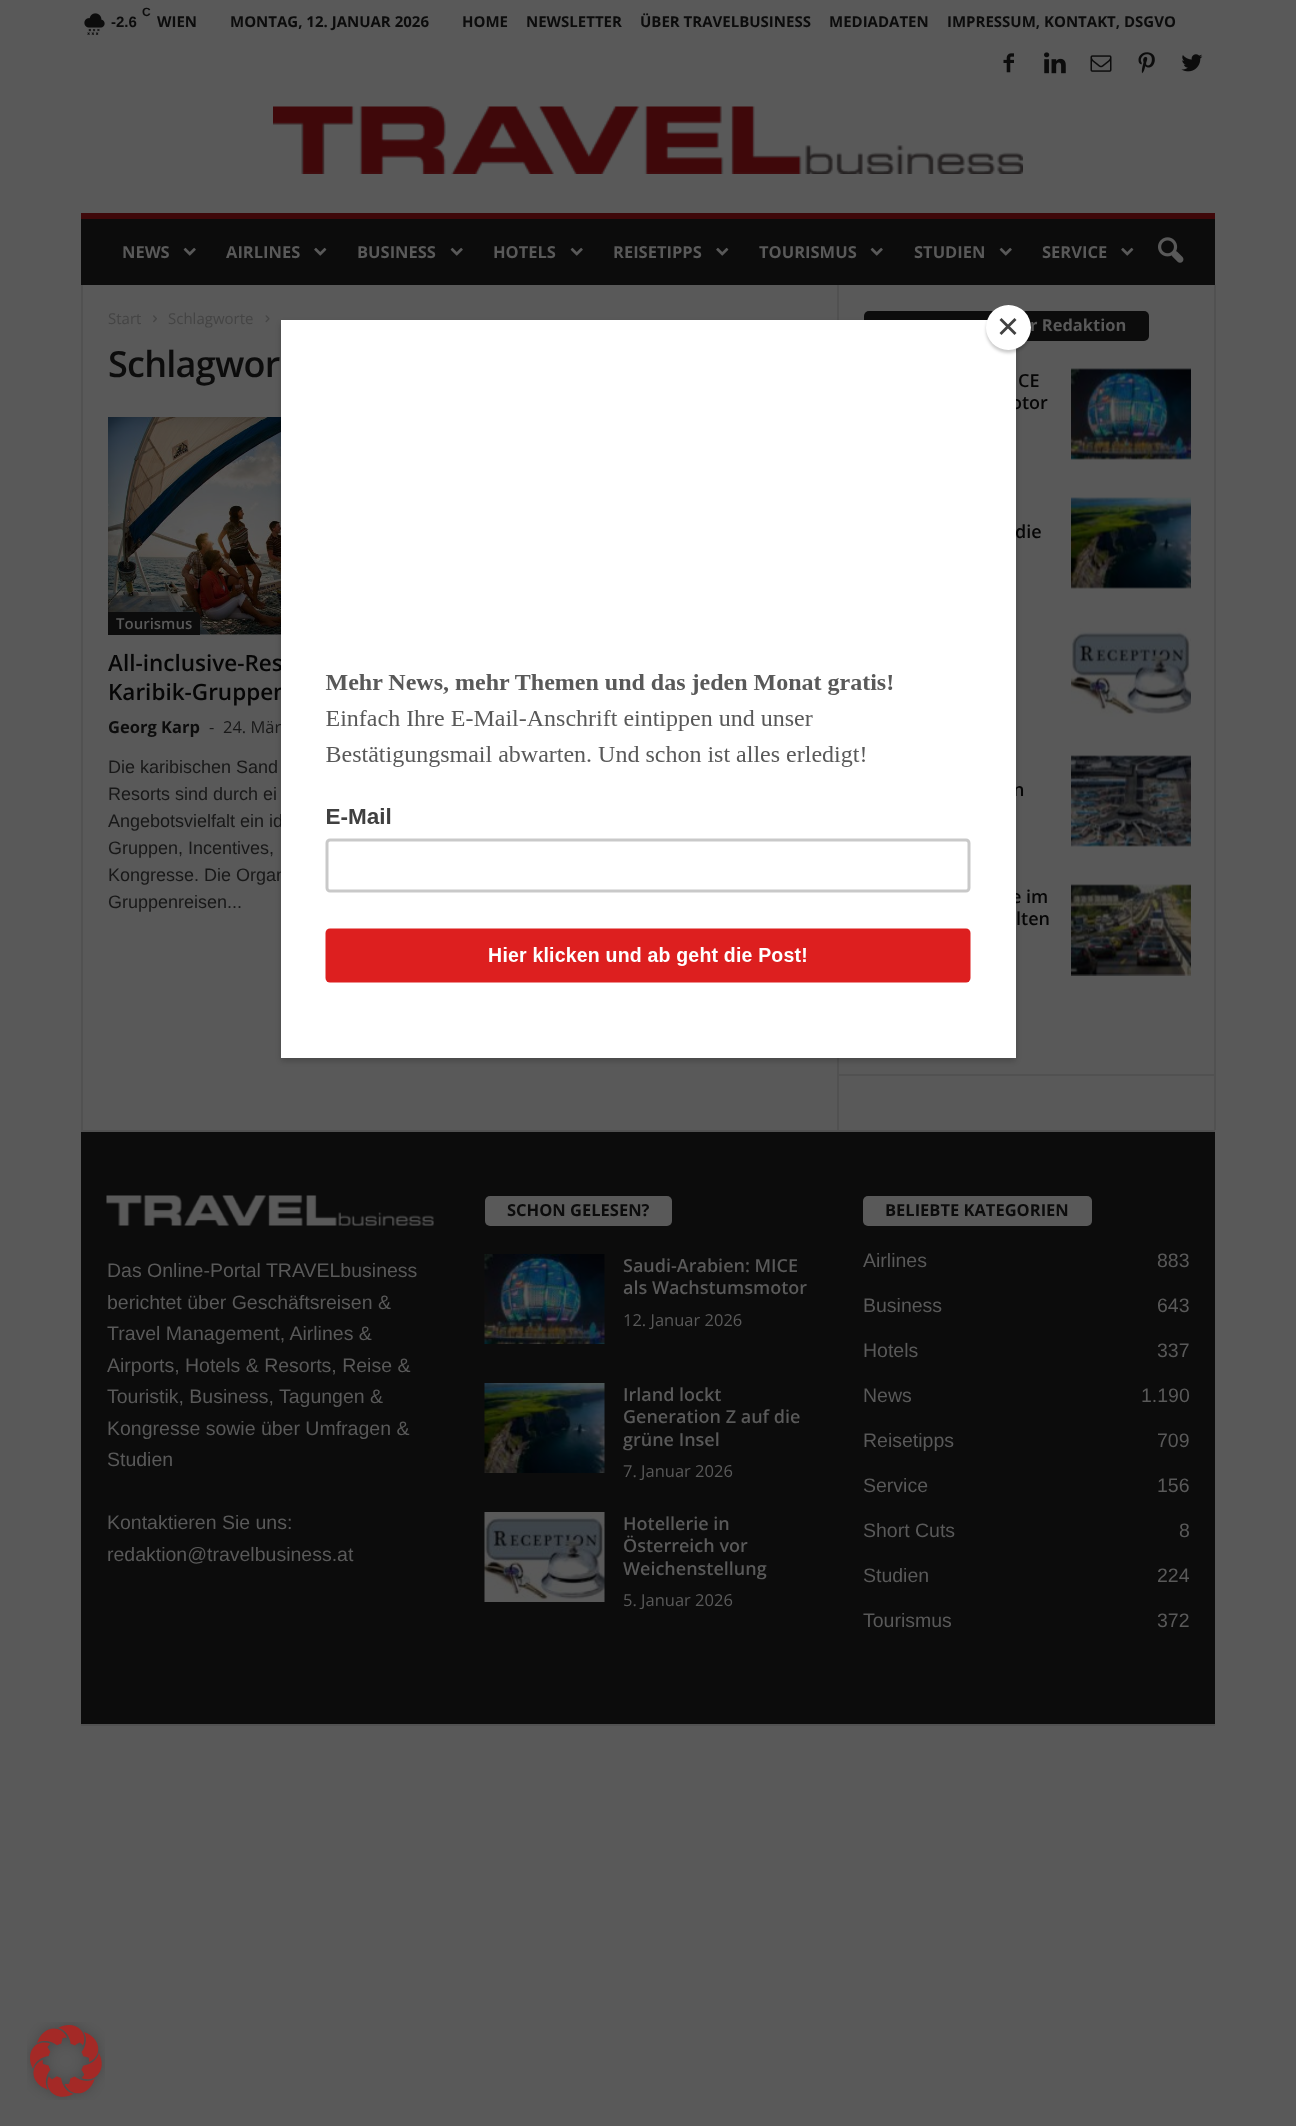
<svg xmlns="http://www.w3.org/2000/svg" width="1296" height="2126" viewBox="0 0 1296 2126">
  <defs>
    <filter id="blur1" x="-50%" y="-200%" width="200%" height="500%"><feGaussianBlur stdDeviation="3"/></filter>
    <filter id="blur2" x="-50%" y="-200%" width="200%" height="500%"><feGaussianBlur stdDeviation="1.5"/></filter>
  </defs>
  <rect width="100%" height="100%" fill="#595959"/>
  <image x="84" y="13" width="21" height="22" href="img1.png"/>
  <text x="142" y="16" font-family="Liberation Sans" font-size="12" font-weight="bold" fill="#0c0c0c">C</text>
  <text x="111" y="27" font-family="Liberation Sans" font-size="15" font-weight="bold" fill="#0c0c0c">-2.6</text>
  <text x="157" y="27" font-family="Open Sans" font-size="15" font-weight="bold" fill="#0c0c0c">WIEN</text>
  <text x="230" y="27" font-family="Open Sans" font-size="15" font-weight="bold" fill="#0c0c0c">MONTAG, 12. JANUAR 2026</text>
  <text x="462" y="27" font-family="Open Sans" font-size="15" font-weight="bold" fill="#0c0c0c">HOME</text>
  <text x="526" y="27" font-family="Open Sans" font-size="15" font-weight="bold" fill="#0c0c0c">NEWSLETTER</text>
  <text x="640" y="27" font-family="Open Sans" font-size="15" font-weight="bold" fill="#0c0c0c">ÜBER TRAVELBUSINESS</text>
  <text x="829" y="27" font-family="Open Sans" font-size="15" font-weight="bold" fill="#0c0c0c">MEDIADATEN</text>
  <text x="947" y="27" font-family="Open Sans" font-size="15" font-weight="bold" fill="#0c0c0c">IMPRESSUM, KONTAKT, DSGVO</text>
  <image x="1003" y="53" width="11" height="20" href="img2.png"/>
  <image x="1044" y="52" width="22" height="22" href="img3.png"/>
  <image x="1090" y="55" width="22" height="17" href="img4.png"/>
  <image x="1138" y="52" width="17" height="22" href="img5.png"/>
  <image x="1181" y="54" width="22" height="18" href="img6.png"/>
  <image x="273" y="106" width="750" height="68" href="img7.png"/>
  <rect x="81" y="219" width="1134" height="66" fill="#0c0c0c"/>
  <rect x="81" y="213" width="1134" height="6" fill="#3f080a"/>
  <text x="122" y="258" font-family="Open Sans" font-size="16.5" font-weight="bold" fill="#595959">NEWS</text>
  <image x="183" y="247" width="13" height="9" href="img8.png"/>
  <text x="226" y="258" font-family="Open Sans" font-size="16.5" font-weight="bold" fill="#595959">AIRLINES</text>
  <image x="314" y="247" width="13" height="9" href="img9.png"/>
  <text x="357" y="258" font-family="Open Sans" font-size="16.5" font-weight="bold" fill="#595959">BUSINESS</text>
  <image x="450" y="247" width="13" height="9" href="img8.png"/>
  <text x="493" y="258" font-family="Open Sans" font-size="16.5" font-weight="bold" fill="#595959">HOTELS</text>
  <image x="570" y="247" width="13" height="9" href="img8.png"/>
  <text x="613" y="258" font-family="Open Sans" font-size="16.5" font-weight="bold" fill="#595959">REISETIPPS</text>
  <image x="716" y="247" width="13" height="9" href="img9.png"/>
  <text x="759" y="258" font-family="Open Sans" font-size="16.5" font-weight="bold" fill="#595959">TOURISMUS</text>
  <image x="870" y="247" width="13" height="9" href="img8.png"/>
  <text x="914" y="258" font-family="Open Sans" font-size="16.5" font-weight="bold" fill="#595959">STUDIEN</text>
  <image x="999" y="247" width="13" height="9" href="img8.png"/>
  <text x="1042" y="258" font-family="Open Sans" font-size="16.5" font-weight="bold" fill="#595959">SERVICE</text>
  <image x="1121" y="247" width="13" height="9" href="img9.png"/>
  <image x="1158" y="237" width="26" height="26" href="img10.png"/>
  <rect x="81" y="1130" width="1134" height="2" fill="#515151"/>
  <rect x="81" y="285" width="2" height="845" fill="#515151"/>
  <text x="108" y="324" font-family="Open Sans" font-size="15" fill="#444444">Start</text>
  <image x="153" y="315" width="4" height="8" href="img11.png"/>
  <text x="168" y="324" font-family="Open Sans" font-size="15" fill="#444444">Schlagworte</text>
  <image x="265" y="315" width="5" height="8" href="img12.png"/>
  <text x="108" y="377" font-family="Open Sans" font-size="36" font-weight="600" letter-spacing="-0.75" fill="#0c0c0c">Schlagwor</text>
  <image x="108" y="417" width="173" height="218" href="img13.png"/>
  <path d="M108 612H195C198 612 200 614 200 617V635H108Z" fill="#0c0c0c"/>
  <text x="116" y="629" font-family="Open Sans" font-size="15" font-weight="600" fill="#595959">Tourismus</text>
  <text x="108" y="671" font-family="Open Sans" font-size="22.5" font-weight="600" fill="#060606">All-inclusive-Res</text>
  <text x="108" y="700" font-family="Open Sans" font-size="22.5" font-weight="600" fill="#060606">Karibik-Gruppen</text>
  <text x="108" y="733" font-family="Open Sans" font-size="16.5" font-weight="bold" fill="#0c0c0c">Georg Karp</text>
  <text x="209" y="733" font-family="Open Sans" font-size="16.5" fill="#181818">-</text>
  <text x="223" y="733" font-family="Open Sans" font-size="16.5" fill="#181818">24. Mär</text>
  <text x="108" y="773" font-family="Liberation Sans" font-size="18" fill="#181818">Die karibischen Sand</text>
  <text x="108" y="800" font-family="Liberation Sans" font-size="18" fill="#181818">Resorts sind durch ei</text>
  <text x="108" y="827" font-family="Liberation Sans" font-size="18" fill="#181818">Angebotsvielfalt ein id</text>
  <text x="108" y="854" font-family="Liberation Sans" font-size="18" fill="#181818">Gruppen, Incentives,</text>
  <text x="108" y="881" font-family="Liberation Sans" font-size="18" fill="#181818">Kongresse. Die Organ</text>
  <text x="108" y="908" font-family="Liberation Sans" font-size="18" fill="#181818">Gruppenreisen...</text>
  <rect x="837" y="285" width="2" height="845" fill="#515151"/>
  <rect x="864" y="311" width="285" height="30" rx="5" fill="#0c0c0c"/>
  <text x="1030" y="331" font-family="Open Sans" font-size="16.5" font-weight="bold" fill="#595959">r Redaktion</text>
  <text x="1018" y="387" font-family="Open Sans" font-size="18" font-weight="600" fill="#060606">CE</text>
  <text x="1011" y="409" font-family="Open Sans" font-size="18" font-weight="600" fill="#060606">otor</text>
  <image x="1071" y="368" width="120" height="92" href="img14.png"/>
  <text x="1015" y="538" font-family="Open Sans" font-size="18" font-weight="600" fill="#060606">die</text>
  <image x="1071" y="497" width="120" height="92" href="img15.png"/>
  <image x="1071" y="628" width="120" height="89" href="img16.png"/>
  <text x="1013" y="796" font-family="Open Sans" font-size="18" font-weight="600" fill="#060606">n</text>
  <image x="1071" y="755" width="120" height="92" href="img17.png"/>
  <text x="1011" y="903" font-family="Open Sans" font-size="18" font-weight="600" fill="#060606">e im</text>
  <text x="1016" y="925" font-family="Open Sans" font-size="18" font-weight="600" fill="#060606">lten</text>
  <image x="1071" y="884" width="120" height="92" href="img18.png"/>
  <rect x="1214" y="285" width="2" height="845" fill="#515151"/>
  <rect x="839" y="1074" width="376" height="2" fill="#515151"/>
  <rect x="81" y="1132" width="1134" height="592" fill="#0c0c0c"/>
  <image x="106" y="1195" width="328" height="31" href="img19.png"/>
  <text x="107" y="1277" font-family="Liberation Sans" font-size="19.5" fill="#595959">Das Online-Portal TRAVELbusiness</text>
  <text x="107" y="1309" font-family="Liberation Sans" font-size="19.5" fill="#595959">berichtet über Geschäftsreisen &amp;</text>
  <text x="107" y="1340" font-family="Liberation Sans" font-size="19.5" fill="#595959">Travel Management, Airlines &amp;</text>
  <text x="107" y="1372" font-family="Liberation Sans" font-size="19.5" fill="#595959">Airports, Hotels &amp; Resorts, Reise &amp;</text>
  <text x="107" y="1403" font-family="Liberation Sans" font-size="19.5" fill="#595959">Touristik, Business, Tagungen &amp;</text>
  <text x="107" y="1435" font-family="Liberation Sans" font-size="19.5" fill="#595959">Kongresse sowie über Umfragen &amp;</text>
  <text x="107" y="1466" font-family="Liberation Sans" font-size="19.5" fill="#595959">Studien</text>
  <text x="107" y="1529" font-family="Liberation Sans" font-size="19.5" fill="#595959">Kontaktieren Sie uns:</text>
  <text x="107" y="1561" font-family="Liberation Sans" font-size="19.5" fill="#595959">redaktion@travelbusiness.at</text>
  <rect x="485" y="1196" width="187" height="30" rx="5" fill="#595959"/>
  <text x="507" y="1216" font-family="Open Sans" font-size="16.5" font-weight="bold" fill="#0c0c0c">SCHON GELESEN?</text>
  <image x="484" y="1254" width="121" height="90" href="img20.png"/>
  <text x="623" y="1272" font-family="Open Sans" font-size="18" font-weight="600" fill="#595959">Saudi-Arabien: MICE</text>
  <text x="623" y="1294" font-family="Open Sans" font-size="18" font-weight="600" fill="#595959">als Wachstumsmotor</text>
  <text x="623" y="1326" font-family="Open Sans" font-size="16.5" fill="#595959">12. Januar 2026</text>
  <image x="484" y="1383" width="121" height="90" href="img21.png"/>
  <text x="623" y="1401" font-family="Open Sans" font-size="18" font-weight="600" fill="#595959">Irland lockt</text>
  <text x="623" y="1423" font-family="Open Sans" font-size="18" font-weight="600" fill="#595959">Generation Z auf die</text>
  <text x="623" y="1446" font-family="Open Sans" font-size="18" font-weight="600" fill="#595959">grüne Insel</text>
  <text x="623" y="1477" font-family="Open Sans" font-size="16.5" fill="#595959">7. Januar 2026</text>
  <image x="484" y="1512" width="121" height="90" href="img22.png"/>
  <text x="623" y="1530" font-family="Open Sans" font-size="18" font-weight="600" fill="#595959">Hotellerie in</text>
  <text x="623" y="1552" font-family="Open Sans" font-size="18" font-weight="600" fill="#595959">Österreich vor</text>
  <text x="623" y="1575" font-family="Open Sans" font-size="18" font-weight="600" fill="#595959">Weichenstellung</text>
  <text x="623" y="1606" font-family="Open Sans" font-size="16.5" fill="#595959">5. Januar 2026</text>
  <rect x="863" y="1196" width="229" height="30" rx="5" fill="#595959"/>
  <text x="885" y="1216" font-family="Open Sans" font-size="16.5" font-weight="bold" fill="#0c0c0c">BELIEBTE KATEGORIEN</text>
  <text x="863" y="1267" font-family="Liberation Sans" font-size="19.5" fill="#595959">Airlines</text>
  <text x="1157" y="1267" font-family="Liberation Sans" font-size="19.5" fill="#595959">883</text>
  <text x="863" y="1312" font-family="Liberation Sans" font-size="19.5" fill="#595959">Business</text>
  <text x="1157" y="1312" font-family="Liberation Sans" font-size="19.5" fill="#595959">643</text>
  <text x="863" y="1357" font-family="Liberation Sans" font-size="19.5" fill="#595959">Hotels</text>
  <text x="1157" y="1357" font-family="Liberation Sans" font-size="19.5" fill="#595959">337</text>
  <text x="863" y="1402" font-family="Liberation Sans" font-size="19.5" fill="#595959">News</text>
  <text x="1141" y="1402" font-family="Liberation Sans" font-size="19.5" fill="#595959">1.190</text>
  <text x="863" y="1447" font-family="Liberation Sans" font-size="19.5" fill="#595959">Reisetipps</text>
  <text x="1157" y="1447" font-family="Liberation Sans" font-size="19.5" fill="#595959">709</text>
  <text x="863" y="1492" font-family="Liberation Sans" font-size="19.5" fill="#595959">Service</text>
  <text x="1157" y="1492" font-family="Liberation Sans" font-size="19.5" fill="#595959">156</text>
  <text x="863" y="1537" font-family="Liberation Sans" font-size="19.5" fill="#595959">Short Cuts</text>
  <text x="1179" y="1537" font-family="Liberation Sans" font-size="19.5" fill="#595959">8</text>
  <text x="863" y="1582" font-family="Liberation Sans" font-size="19.5" fill="#595959">Studien</text>
  <text x="1157" y="1582" font-family="Liberation Sans" font-size="19.5" fill="#595959">224</text>
  <text x="863" y="1627" font-family="Liberation Sans" font-size="19.5" fill="#595959">Tourismus</text>
  <text x="1157" y="1627" font-family="Liberation Sans" font-size="19.5" fill="#595959">372</text>
  <rect x="281" y="323" width="735" height="738" fill="#000000" fill-opacity="0.2" filter="url(#blur1)"/>
  <image x="281" y="320" width="735" height="738" href="img23.png"/>
  <rect x="986" y="308" width="45" height="45" rx="22.5" fill="#000000" fill-opacity="0.2" filter="url(#blur2)"/>
  <circle cx="1008.5" cy="327.5" r="22.5" fill="#ffffff"/>
  <path d="M1014.5 318L1016.5 320L1001.5 335L999.5 333Z" fill="#414141"/>
  <path d="M999.5 320L1001.5 318L1016.5 333L1014.5 335Z" fill="#414141"/>
  <rect x="81" y="1724" width="1134" height="2" fill="#515151"/>
  <image x="27" y="2022" width="78" height="78" href="img24.png"/>
</svg>
